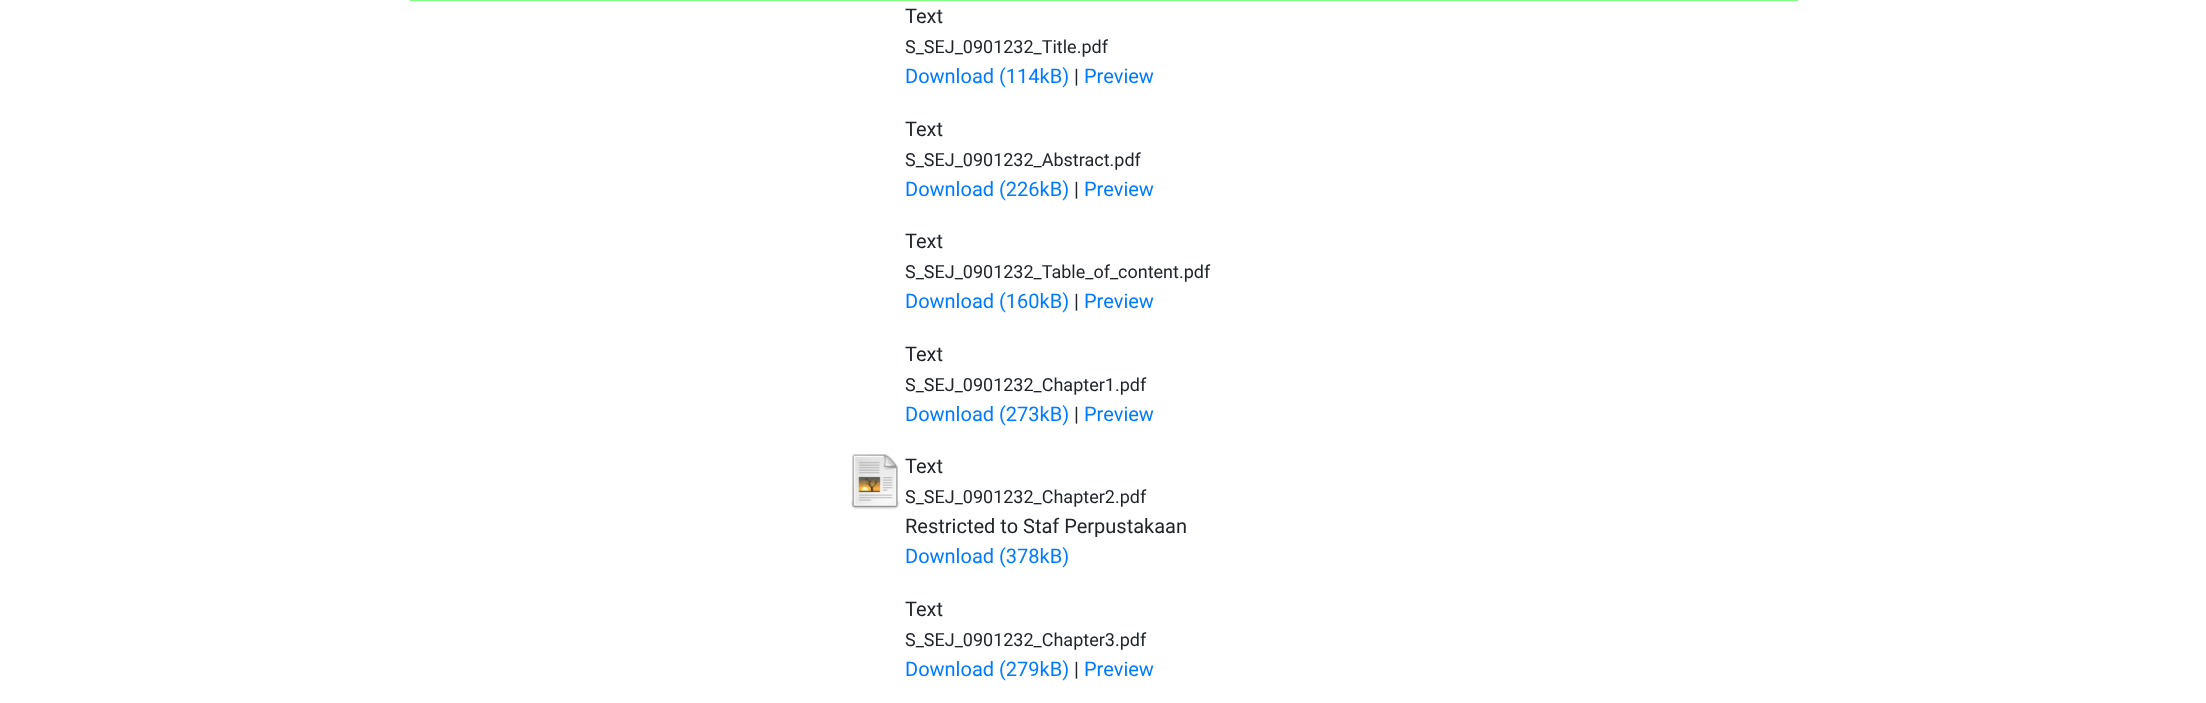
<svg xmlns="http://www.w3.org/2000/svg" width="2206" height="703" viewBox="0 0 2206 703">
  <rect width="100%" height="100%" fill="#ffffff"/>
  <rect x="410" y="0" width="1388" height="1" fill="#80ff80"/>
  <text x="905" y="23" font-family="Roboto" font-size="20" fill="#212529">Text</text>
  <text x="905" y="53" font-family="Roboto" font-size="18" fill="#212529">S_SEJ_0901232_Title.pdf</text>
  <text x="905" y="83" font-family="Roboto" font-size="20" fill="#007bff">Download (114kB)</text>
  <text x="1074" y="83" font-family="Roboto" font-size="20" fill="#212529">|</text>
  <text x="1084" y="83" font-family="Roboto" font-size="20" fill="#007bff">Preview</text>
  <text x="905" y="136" font-family="Roboto" font-size="20" fill="#212529">Text</text>
  <text x="905" y="166" font-family="Roboto" font-size="18" fill="#212529">S_SEJ_0901232_Abstract.pdf</text>
  <text x="905" y="196" font-family="Roboto" font-size="20" fill="#007bff">Download (226kB)</text>
  <text x="1074" y="196" font-family="Roboto" font-size="20" fill="#212529">|</text>
  <text x="1084" y="196" font-family="Roboto" font-size="20" fill="#007bff">Preview</text>
  <text x="905" y="248" font-family="Roboto" font-size="20" fill="#212529">Text</text>
  <text x="905" y="278" font-family="Roboto" font-size="18" fill="#212529">S_SEJ_0901232_Table_of_content.pdf</text>
  <text x="905" y="308" font-family="Roboto" font-size="20" fill="#007bff">Download (160kB)</text>
  <text x="1074" y="308" font-family="Roboto" font-size="20" fill="#212529">|</text>
  <text x="1084" y="308" font-family="Roboto" font-size="20" fill="#007bff">Preview</text>
  <text x="905" y="361" font-family="Roboto" font-size="20" fill="#212529">Text</text>
  <text x="905" y="391" font-family="Roboto" font-size="18" fill="#212529">S_SEJ_0901232_Chapter1.pdf</text>
  <text x="905" y="421" font-family="Roboto" font-size="20" fill="#007bff">Download (273kB)</text>
  <text x="1074" y="421" font-family="Roboto" font-size="20" fill="#212529">|</text>
  <text x="1084" y="421" font-family="Roboto" font-size="20" fill="#007bff">Preview</text>
  <image x="850" y="454" width="50" height="56" href="img1.png"/>
  <text x="905" y="473" font-family="Roboto" font-size="20" fill="#212529">Text</text>
  <text x="905" y="503" font-family="Roboto" font-size="18" fill="#212529">S_SEJ_0901232_Chapter2.pdf</text>
  <text x="905" y="533" font-family="Roboto" font-size="20" fill="#212529">Restricted to Staf Perpustakaan</text>
  <text x="905" y="563" font-family="Roboto" font-size="20" fill="#007bff">Download (378kB)</text>
  <text x="905" y="616" font-family="Roboto" font-size="20" fill="#212529">Text</text>
  <text x="905" y="646" font-family="Roboto" font-size="18" fill="#212529">S_SEJ_0901232_Chapter3.pdf</text>
  <text x="905" y="676" font-family="Roboto" font-size="20" fill="#007bff">Download (279kB)</text>
  <text x="1074" y="676" font-family="Roboto" font-size="20" fill="#212529">|</text>
  <text x="1084" y="676" font-family="Roboto" font-size="20" fill="#007bff">Preview</text>
</svg>
